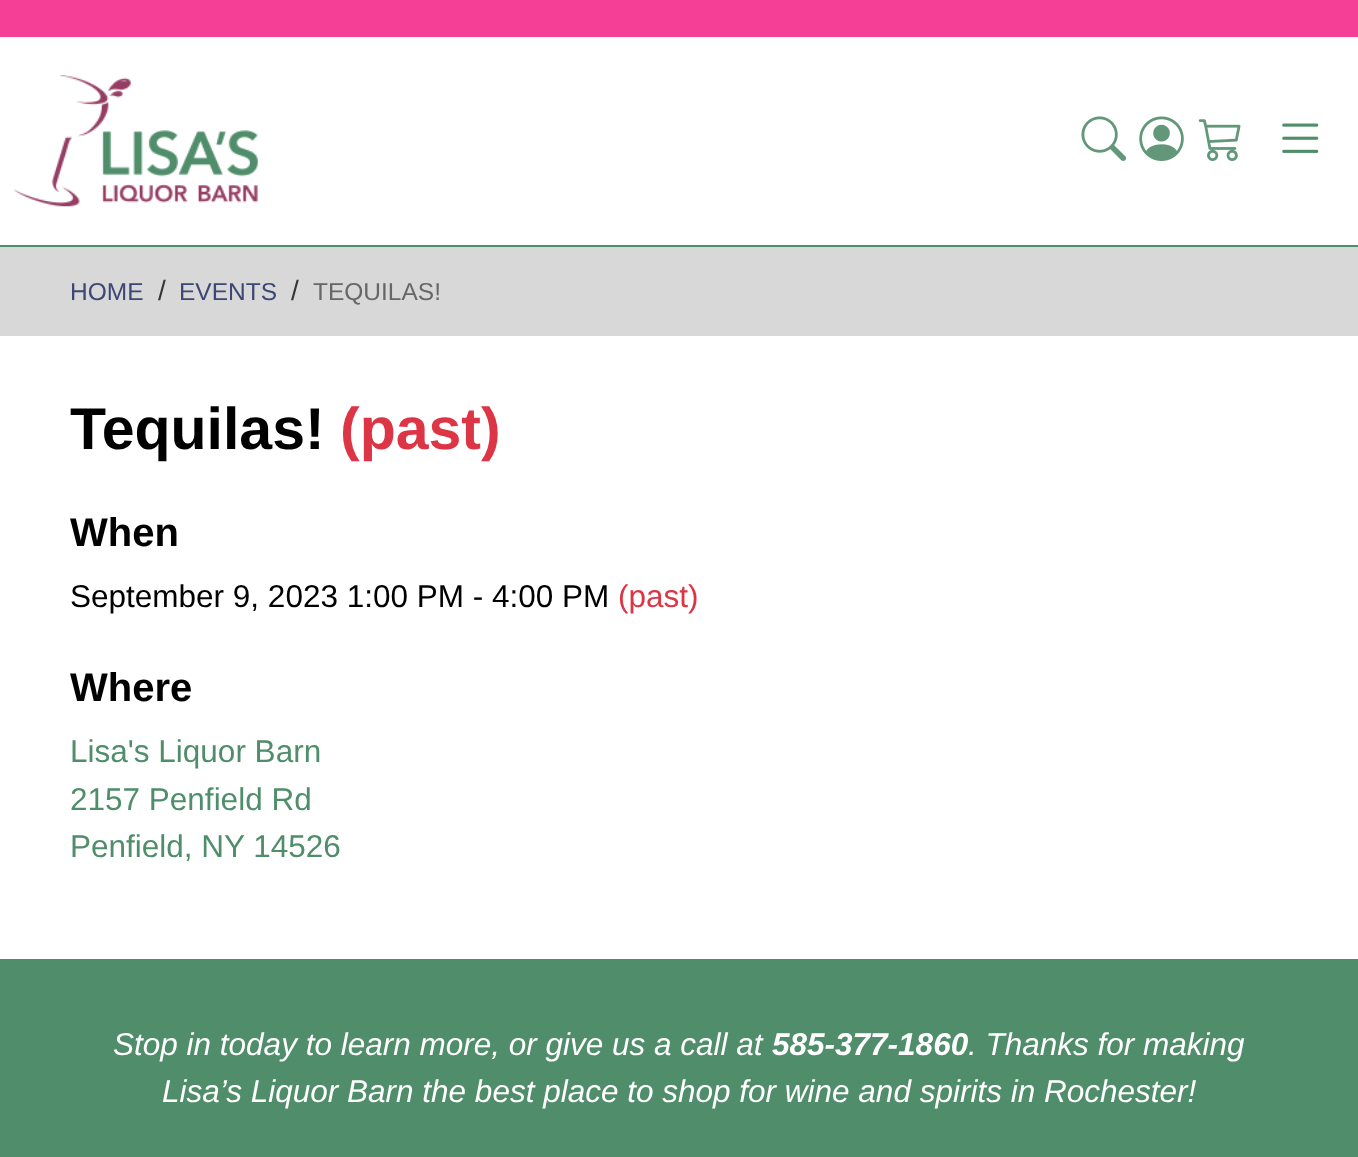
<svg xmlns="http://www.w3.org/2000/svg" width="1358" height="1157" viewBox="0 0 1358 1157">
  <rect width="100%" height="100%" fill="#ffffff"/>
  <rect x="0" y="0" width="1358" height="37" fill="#f53e95"/>
  <rect x="0" y="245" width="1358" height="2" fill="#508d6a"/>
  <image x="14" y="75" width="244" height="132" href="img1.png"/>
  <image x="1081" y="116" width="45" height="45" href="img2.png"/>
  <image x="1139" y="116" width="45" height="45" href="img3.png"/>
  <image x="1198" y="119" width="43" height="42" href="img4.png"/>
  <image x="1282" y="123" width="37" height="30" href="img5.png"/>
  <rect x="0" y="247" width="1358" height="89" fill="#d8d8d8"/>
  <text x="70" y="300" font-family="Liberation Sans" font-size="24.5" fill="#3d4773">HOME</text>
  <text x="158" y="300" font-family="Liberation Sans" font-size="28" fill="#363636">/</text>
  <text x="179" y="300" font-family="Liberation Sans" font-size="24.5" fill="#3d4773">EVENTS</text>
  <text x="291" y="300" font-family="Liberation Sans" font-size="28" fill="#363636">/</text>
  <text x="313" y="300" font-family="Liberation Sans" font-size="24.5" fill="#676767">TEQUILAS!</text>
  <text x="70" y="449" font-family="Liberation Sans" font-size="59" font-weight="bold" fill="#000000">Tequilas!</text>
  <text x="340" y="449" font-family="Liberation Sans" font-size="59" font-weight="bold" fill="#dc3545">(past)</text>
  <text x="70" y="546" font-family="Liberation Sans" font-size="40" font-weight="bold" fill="#000000">When</text>
  <text x="70" y="607" font-family="Liberation Sans" font-size="31.5" fill="#000000">September 9, 2023 1:00 PM - 4:00 PM</text>
  <text x="618" y="607" font-family="Liberation Sans" font-size="31.5" fill="#dc3545">(past)</text>
  <text x="70" y="701" font-family="Liberation Sans" font-size="40" font-weight="bold" fill="#000000">Where</text>
  <text x="70" y="762" font-family="Liberation Sans" font-size="31.5" fill="#508d6a">Lisa's Liquor Barn</text>
  <text x="70" y="810" font-family="Liberation Sans" font-size="31.5" fill="#508d6a">2157 Penfield Rd</text>
  <text x="70" y="857" font-family="Liberation Sans" font-size="31.5" fill="#508d6a">Penfield, NY 14526</text>
  <rect x="0" y="959" width="1358" height="198" fill="#508d6a"/>
  <text x="113" y="1055" font-family="Liberation Sans" font-size="31.5" font-style="italic" fill="#ffffff">Stop in today to learn more, or give us a call at</text>
  <text x="772" y="1055" font-family="Liberation Sans" font-size="31.5" font-weight="bold" font-style="italic" fill="#ffffff">585-377-1860</text>
  <text x="968" y="1055" font-family="Liberation Sans" font-size="31.5" font-style="italic" fill="#ffffff">. Thanks for making</text>
  <text x="162" y="1102" font-family="Liberation Sans" font-size="31.5" font-style="italic" fill="#ffffff">Lisa’s Liquor Barn the best place to shop for wine and spirits in Rochester!</text>
</svg>
